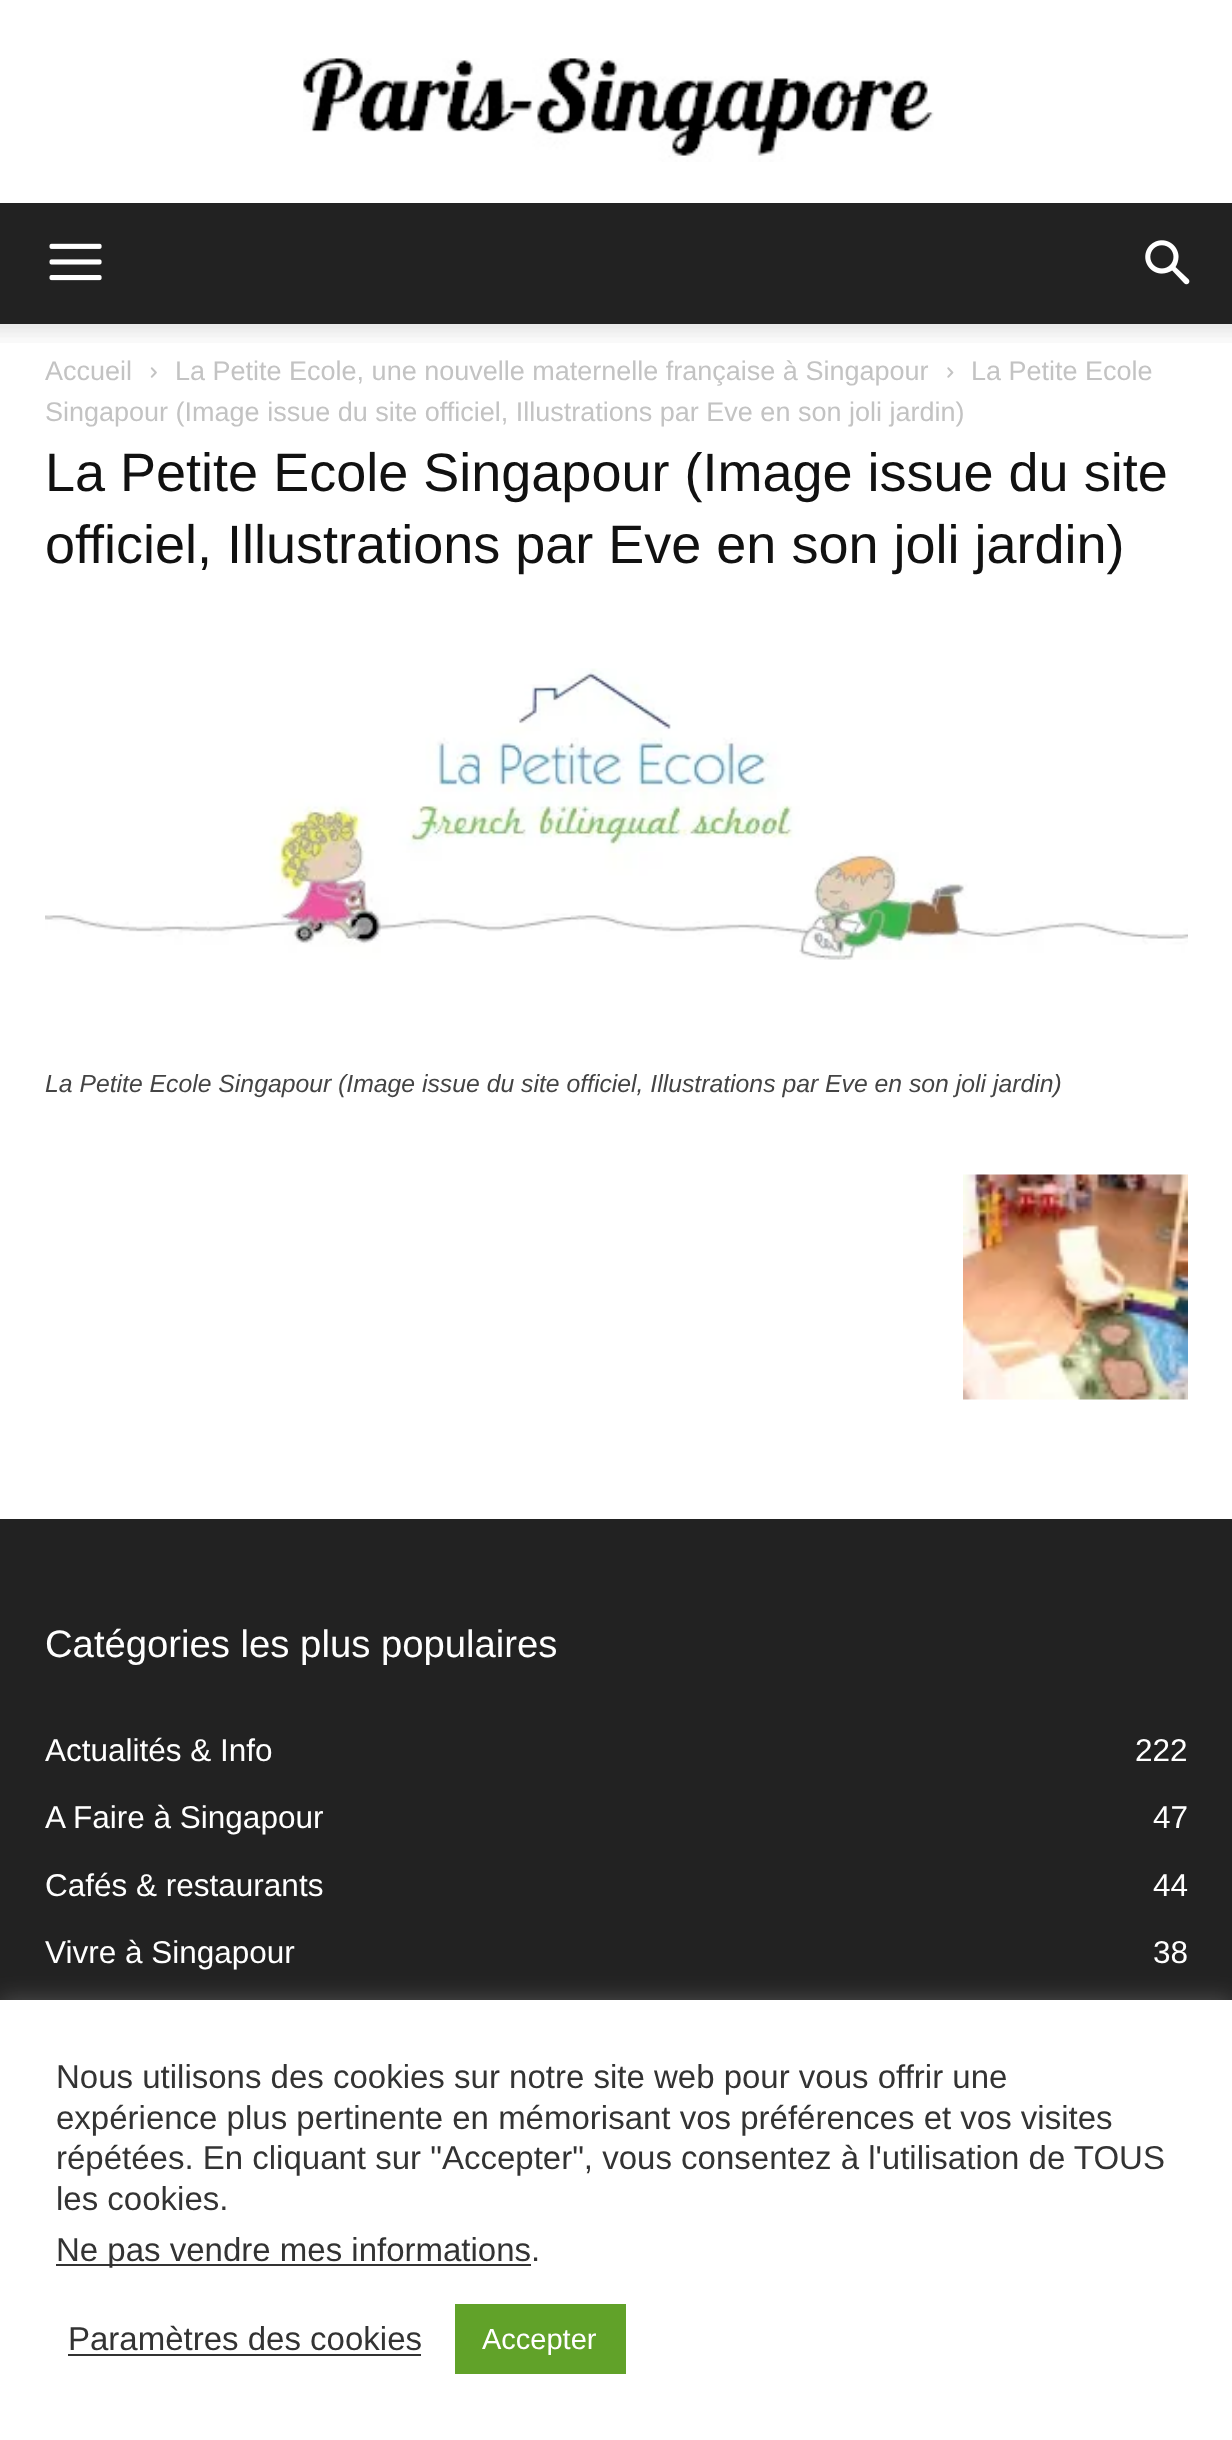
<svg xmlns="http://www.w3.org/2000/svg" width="1232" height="2440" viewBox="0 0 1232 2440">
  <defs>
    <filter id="blur1" x="-50%" y="-200%" width="200%" height="500%"><feGaussianBlur stdDeviation="11"/></filter>
  </defs>
  <rect width="100%" height="100%" fill="#ffffff"/>
  <image x="303" y="58" width="631" height="104" href="img1.png"/>
  <rect x="0" y="203" width="1232" height="121" fill="#222222"/>
  <image x="49" y="243" width="53" height="38" href="img2.png"/>
  <image x="1145" y="240" width="45" height="45" href="img3.png"/>
  <image x="0" y="324" width="1232" height="19" href="img4.png"/>
  <text x="45" y="380" font-family="Liberation Sans" font-size="27" fill="#c3c3c3">Accueil</text>
  <image x="150" y="367" width="7" height="11" href="img5.png"/>
  <text x="175" y="380" font-family="Liberation Sans" font-size="27" fill="#c3c3c3">La Petite Ecole, une nouvelle maternelle française à Singapour</text>
  <image x="947" y="367" width="7" height="11" href="img6.png"/>
  <text x="971" y="380" font-family="Liberation Sans" font-size="27" fill="#c3c3c3">La Petite Ecole</text>
  <text x="45" y="421" font-family="Liberation Sans" font-size="27" fill="#c3c3c3">Singapour (Image issue du site officiel, Illustrations par Eve en son joli jardin)</text>
  <text x="45" y="491" font-family="Liberation Sans" font-size="54" fill="#111111">La Petite Ecole Singapour (Image issue du site</text>
  <text x="45" y="563" font-family="Liberation Sans" font-size="54" fill="#111111">officiel, Illustrations par Eve en son joli jardin)</text>
  <image x="45" y="668" width="1143" height="292" href="img7.png"/>
  <text x="45" y="1092" font-family="Liberation Sans" font-size="24.75" font-style="italic" fill="#444444">La Petite Ecole Singapour (Image issue du site officiel, Illustrations par Eve en son joli jardin)</text>
  <image x="963" y="1174" width="225" height="226" href="img8.png"/>
  <rect x="0" y="1519" width="1232" height="481" fill="#222222"/>
  <text x="45" y="1657" font-family="Liberation Sans" font-size="38.25" fill="#ffffff">Catégories les plus populaires</text>
  <text x="45" y="1761" font-family="Liberation Sans" font-size="31.5" fill="#ffffff">Actualités &amp; Info</text>
  <text x="1135" y="1761" font-family="Liberation Sans" font-size="31.5" fill="#ffffff">222</text>
  <text x="45" y="1828" font-family="Liberation Sans" font-size="31.5" fill="#ffffff">A Faire à Singapour</text>
  <text x="1153" y="1828" font-family="Liberation Sans" font-size="31.5" fill="#ffffff">47</text>
  <text x="45" y="1896" font-family="Liberation Sans" font-size="31.5" fill="#ffffff">Cafés &amp; restaurants</text>
  <text x="1153" y="1896" font-family="Liberation Sans" font-size="31.5" fill="#ffffff">44</text>
  <text x="45" y="1963" font-family="Liberation Sans" font-size="31.5" fill="#ffffff">Vivre à Singapour</text>
  <text x="1153" y="1963" font-family="Liberation Sans" font-size="31.5" fill="#ffffff">38</text>
  <rect x="0" y="1998" width="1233" height="441" fill="#acabab" fill-opacity="0.3" filter="url(#blur1)"/>
  <rect x="0" y="2000" width="1232" height="440" fill="#ffffff"/>
  <text x="56" y="2088" font-family="Liberation Sans" font-size="33" fill="#333333">Nous utilisons des cookies sur notre site web pour vous offrir une</text>
  <text x="56" y="2129" font-family="Liberation Sans" font-size="33" fill="#333333">expérience plus pertinente en mémorisant vos préférences et vos visites</text>
  <text x="56" y="2169" font-family="Liberation Sans" font-size="33" fill="#333333">répétées. En cliquant sur "Accepter", vous consentez à l'utilisation de TOUS</text>
  <text x="56" y="2210" font-family="Liberation Sans" font-size="33" fill="#333333">les cookies.</text>
  <rect x="56" y="2264" width="475" height="2" fill="#333333"/>
  <text x="56" y="2261" font-family="Liberation Sans" font-size="33" fill="#333333">Ne pas vendre mes informations</text>
  <text x="531" y="2261" font-family="Liberation Sans" font-size="33" fill="#333333">.</text>
  <text x="68" y="2350" font-family="Liberation Sans" font-size="33" fill="#333333">Paramètres des cookies</text>
  <rect x="68" y="2354" width="353" height="2" fill="#333333"/>
  <rect x="455" y="2304" width="171" height="70" fill="#61a229"/>
  <text x="482" y="2349" font-family="Liberation Sans" font-size="29" fill="#ffffff">Accepter</text>
</svg>
